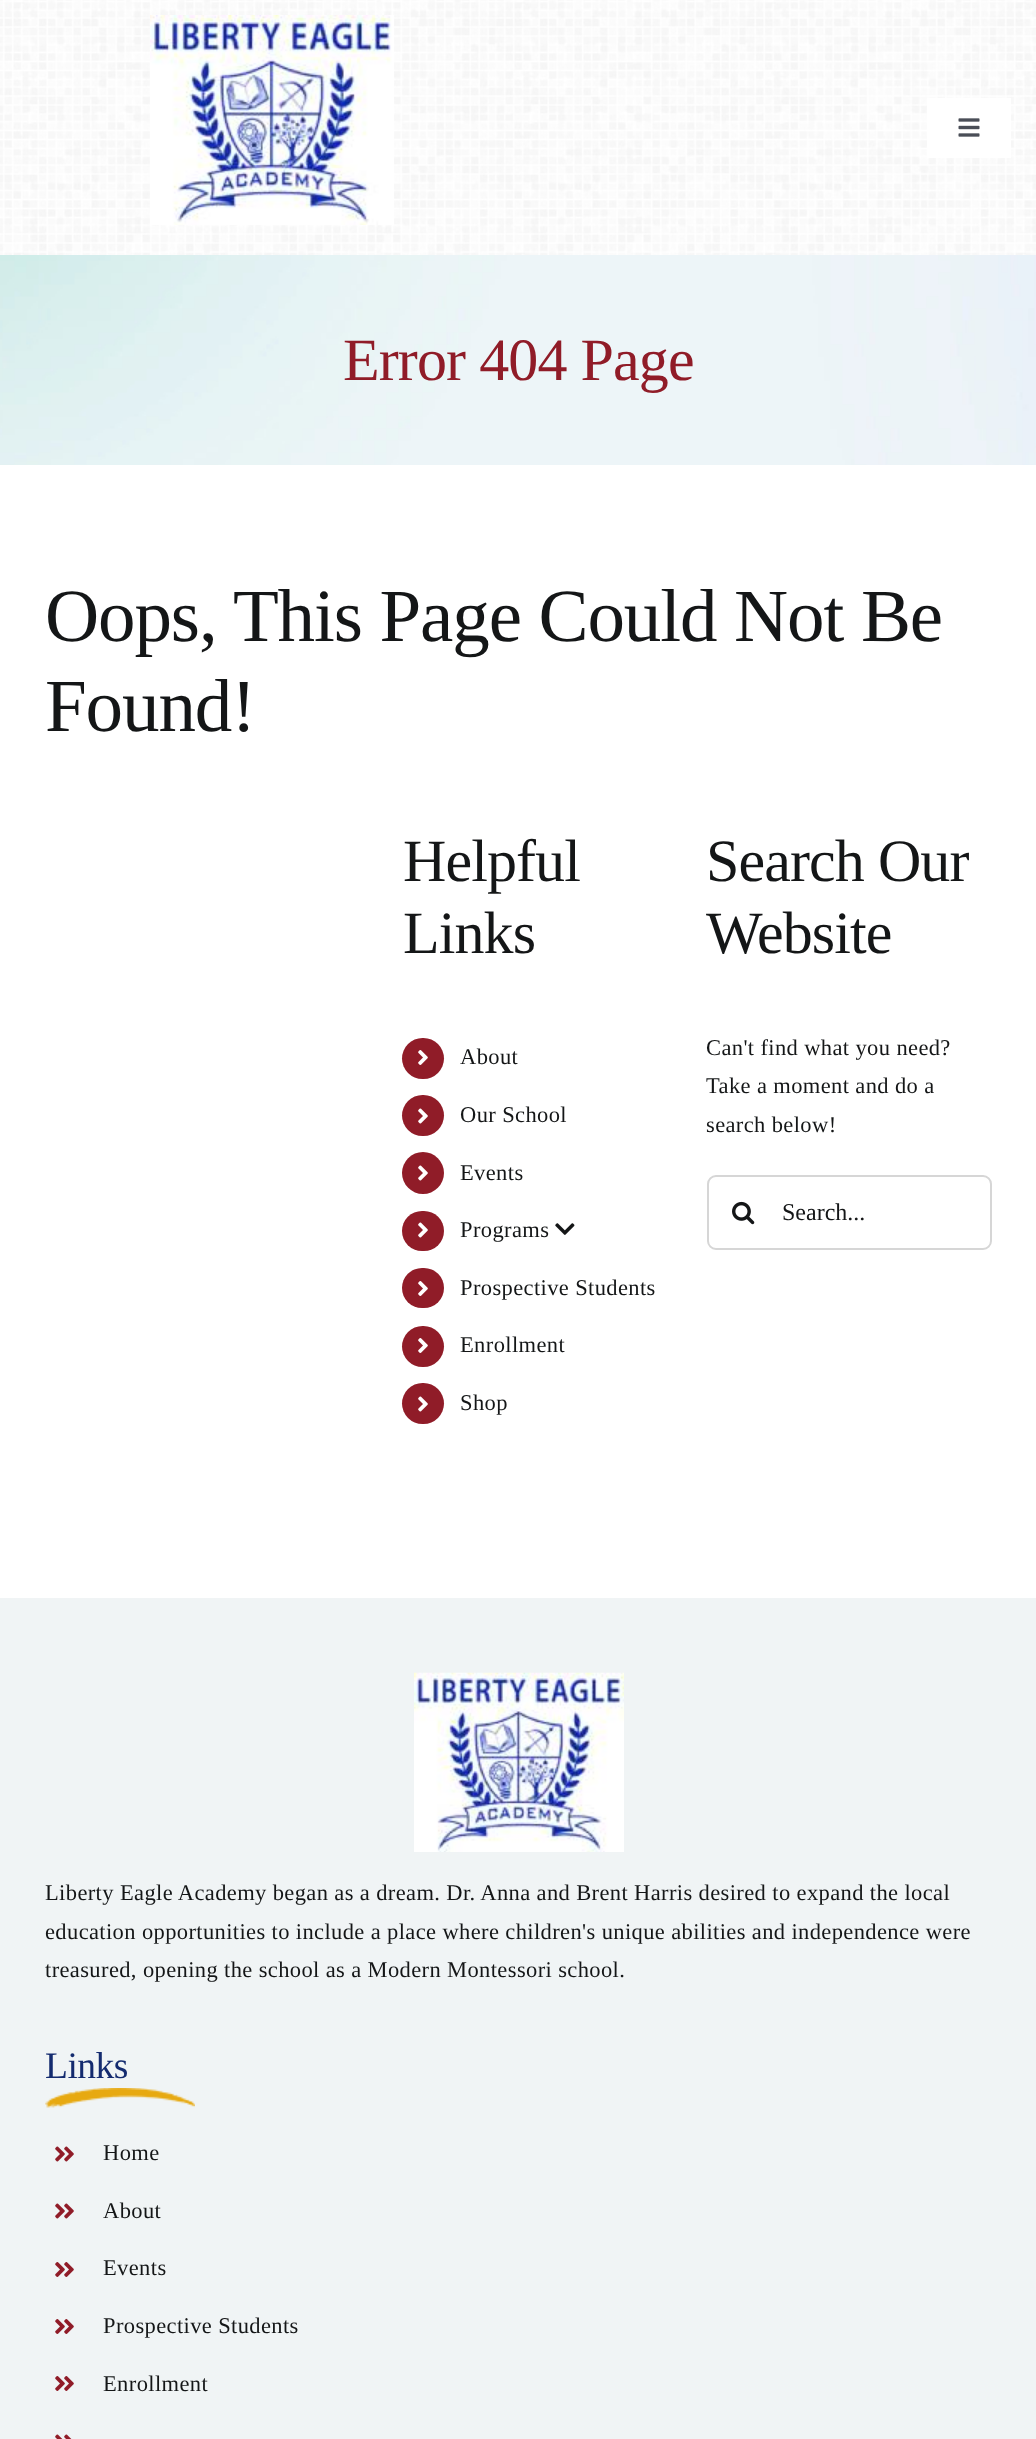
<svg xmlns="http://www.w3.org/2000/svg" width="1036" height="2439" viewBox="0 0 1036 2439">
  <rect width="100%" height="100%" fill="#ffffff"/>
  <image x="0" y="0" width="1036" height="255" href="img1.png"/>
  <image x="150" y="15" width="244" height="210" href="img2.png"/>
  <rect x="927" y="98" width="84" height="60" fill="#ffffff"/>
  <image x="958" y="118" width="22" height="19" href="img3.png"/>
  <image x="0" y="255" width="1036" height="210" href="img4.png"/>
  <text x="343" y="380" font-family="Liberation Serif" font-size="60" letter-spacing="-0.9" fill="#901c28">Error 404 Page</text>
  <text x="45" y="641" font-family="Liberation Serif" font-size="75" letter-spacing="-1.1" fill="#141617">Oops, This Page Could Not Be</text>
  <text x="45" y="731" font-family="Liberation Serif" font-size="75" letter-spacing="-1.1" fill="#141617">Found!</text>
  <text x="403" y="881" font-family="Liberation Serif" font-size="60" letter-spacing="-0.9" fill="#141617">Helpful</text>
  <text x="403" y="953" font-family="Liberation Serif" font-size="60" letter-spacing="-0.9" fill="#141617">Links</text>
  <rect x="402" y="1038" width="42" height="41" rx="20.5" fill="#901c28"/>
  <image x="418" y="1050" width="10" height="15" href="img5.png"/>
  <text x="460" y="1064" font-family="Liberation Serif" font-size="22.5" letter-spacing="0.38" fill="#141617">About</text>
  <rect x="402" y="1095" width="42" height="41" rx="20.5" fill="#901c28"/>
  <image x="418" y="1108" width="10" height="16" href="img6.png"/>
  <text x="460" y="1122" font-family="Liberation Serif" font-size="22.5" letter-spacing="0.38" fill="#141617">Our School</text>
  <circle cx="423" cy="1173" r="21" fill="#901c28"/>
  <image x="418" y="1165" width="10" height="16" href="img6.png"/>
  <text x="460" y="1180" font-family="Liberation Serif" font-size="22.5" letter-spacing="0.38" fill="#141617">Events</text>
  <rect x="402" y="1211" width="42" height="40" rx="20" fill="#901c28"/>
  <image x="418" y="1222" width="10" height="16" href="img6.png"/>
  <text x="460" y="1237" font-family="Liberation Serif" font-size="22.5" letter-spacing="0.38" fill="#141617">Programs</text>
  <image x="555" y="1223" width="20" height="12" href="img7.png"/>
  <rect x="402" y="1268" width="42" height="40" rx="20" fill="#901c28"/>
  <image x="418" y="1281" width="10" height="15" href="img5.png"/>
  <text x="460" y="1295" font-family="Liberation Serif" font-size="22.5" letter-spacing="0.38" fill="#141617">Prospective Students</text>
  <rect x="402" y="1326" width="42" height="41" rx="20.5" fill="#901c28"/>
  <image x="418" y="1338" width="10" height="15" href="img5.png"/>
  <text x="460" y="1352" font-family="Liberation Serif" font-size="22.5" letter-spacing="0.38" fill="#141617">Enrollment</text>
  <rect x="402" y="1383" width="42" height="41" rx="20.5" fill="#901c28"/>
  <image x="418" y="1396" width="10" height="16" href="img6.png"/>
  <text x="460" y="1410" font-family="Liberation Serif" font-size="22.5" letter-spacing="0.38" fill="#141617">Shop</text>
  <text x="706" y="881" font-family="Liberation Serif" font-size="60" letter-spacing="-0.9" fill="#141617">Search Our</text>
  <text x="706" y="953" font-family="Liberation Serif" font-size="60" letter-spacing="-0.9" fill="#141617">Website</text>
  <text x="706" y="1055" font-family="Liberation Serif" font-size="22.5" letter-spacing="0.38" fill="#141617">Can't find what you need?</text>
  <text x="706" y="1093" font-family="Liberation Serif" font-size="22.5" letter-spacing="0.38" fill="#141617">Take a moment and do a</text>
  <text x="706" y="1132" font-family="Liberation Serif" font-size="22.5" letter-spacing="0.38" fill="#141617">search below!</text>
  <rect x="708" y="1176" width="283" height="73" rx="8" fill="none" stroke="#d6d6d6" stroke-width="2"/>
  <image x="732" y="1201" width="23" height="24" href="img8.png"/>
  <text x="782" y="1220" font-family="Liberation Serif" font-size="24" fill="#141617">Search...</text>
  <rect x="0" y="1598" width="1036" height="841" fill="#f0f4f5"/>
  <image x="414" y="1672" width="210" height="180" href="img9.png"/>
  <text x="45" y="1900" font-family="Liberation Serif" font-size="22.5" letter-spacing="0.38" fill="#141617">Liberty Eagle Academy began as a dream. Dr. Anna and Brent Harris desired to expand the local</text>
  <text x="45" y="1939" font-family="Liberation Serif" font-size="22.5" letter-spacing="0.38" fill="#141617">education opportunities to include a place where children's unique abilities and independence were</text>
  <text x="45" y="1977" font-family="Liberation Serif" font-size="22.5" letter-spacing="0.38" fill="#141617">treasured, opening the school as a Modern Montessori school.</text>
  <text x="45" y="2078" font-family="Liberation Serif" font-size="37.5" letter-spacing="-0.5" fill="#142b6f">Links</text>
  <image x="45" y="2088" width="150" height="20" href="img10.png"/>
  <image x="55" y="2146" width="19" height="16" href="img11.png"/>
  <text x="103" y="2160" font-family="Liberation Serif" font-size="22.5" letter-spacing="0.38" fill="#141617">Home</text>
  <image x="55" y="2203" width="19" height="16" href="img11.png"/>
  <text x="103" y="2218" font-family="Liberation Serif" font-size="22.5" letter-spacing="0.38" fill="#141617">About</text>
  <image x="55" y="2262" width="19" height="15" href="img12.png"/>
  <text x="103" y="2275" font-family="Liberation Serif" font-size="22.5" letter-spacing="0.38" fill="#141617">Events</text>
  <image x="55" y="2319" width="19" height="15" href="img12.png"/>
  <text x="103" y="2333" font-family="Liberation Serif" font-size="22.5" letter-spacing="0.38" fill="#141617">Prospective Students</text>
  <image x="55" y="2376" width="19" height="15" href="img12.png"/>
  <text x="103" y="2391" font-family="Liberation Serif" font-size="22.5" letter-spacing="0.38" fill="#141617">Enrollment</text>
  <image x="55" y="2434" width="17" height="5" href="img13.png"/>
</svg>
